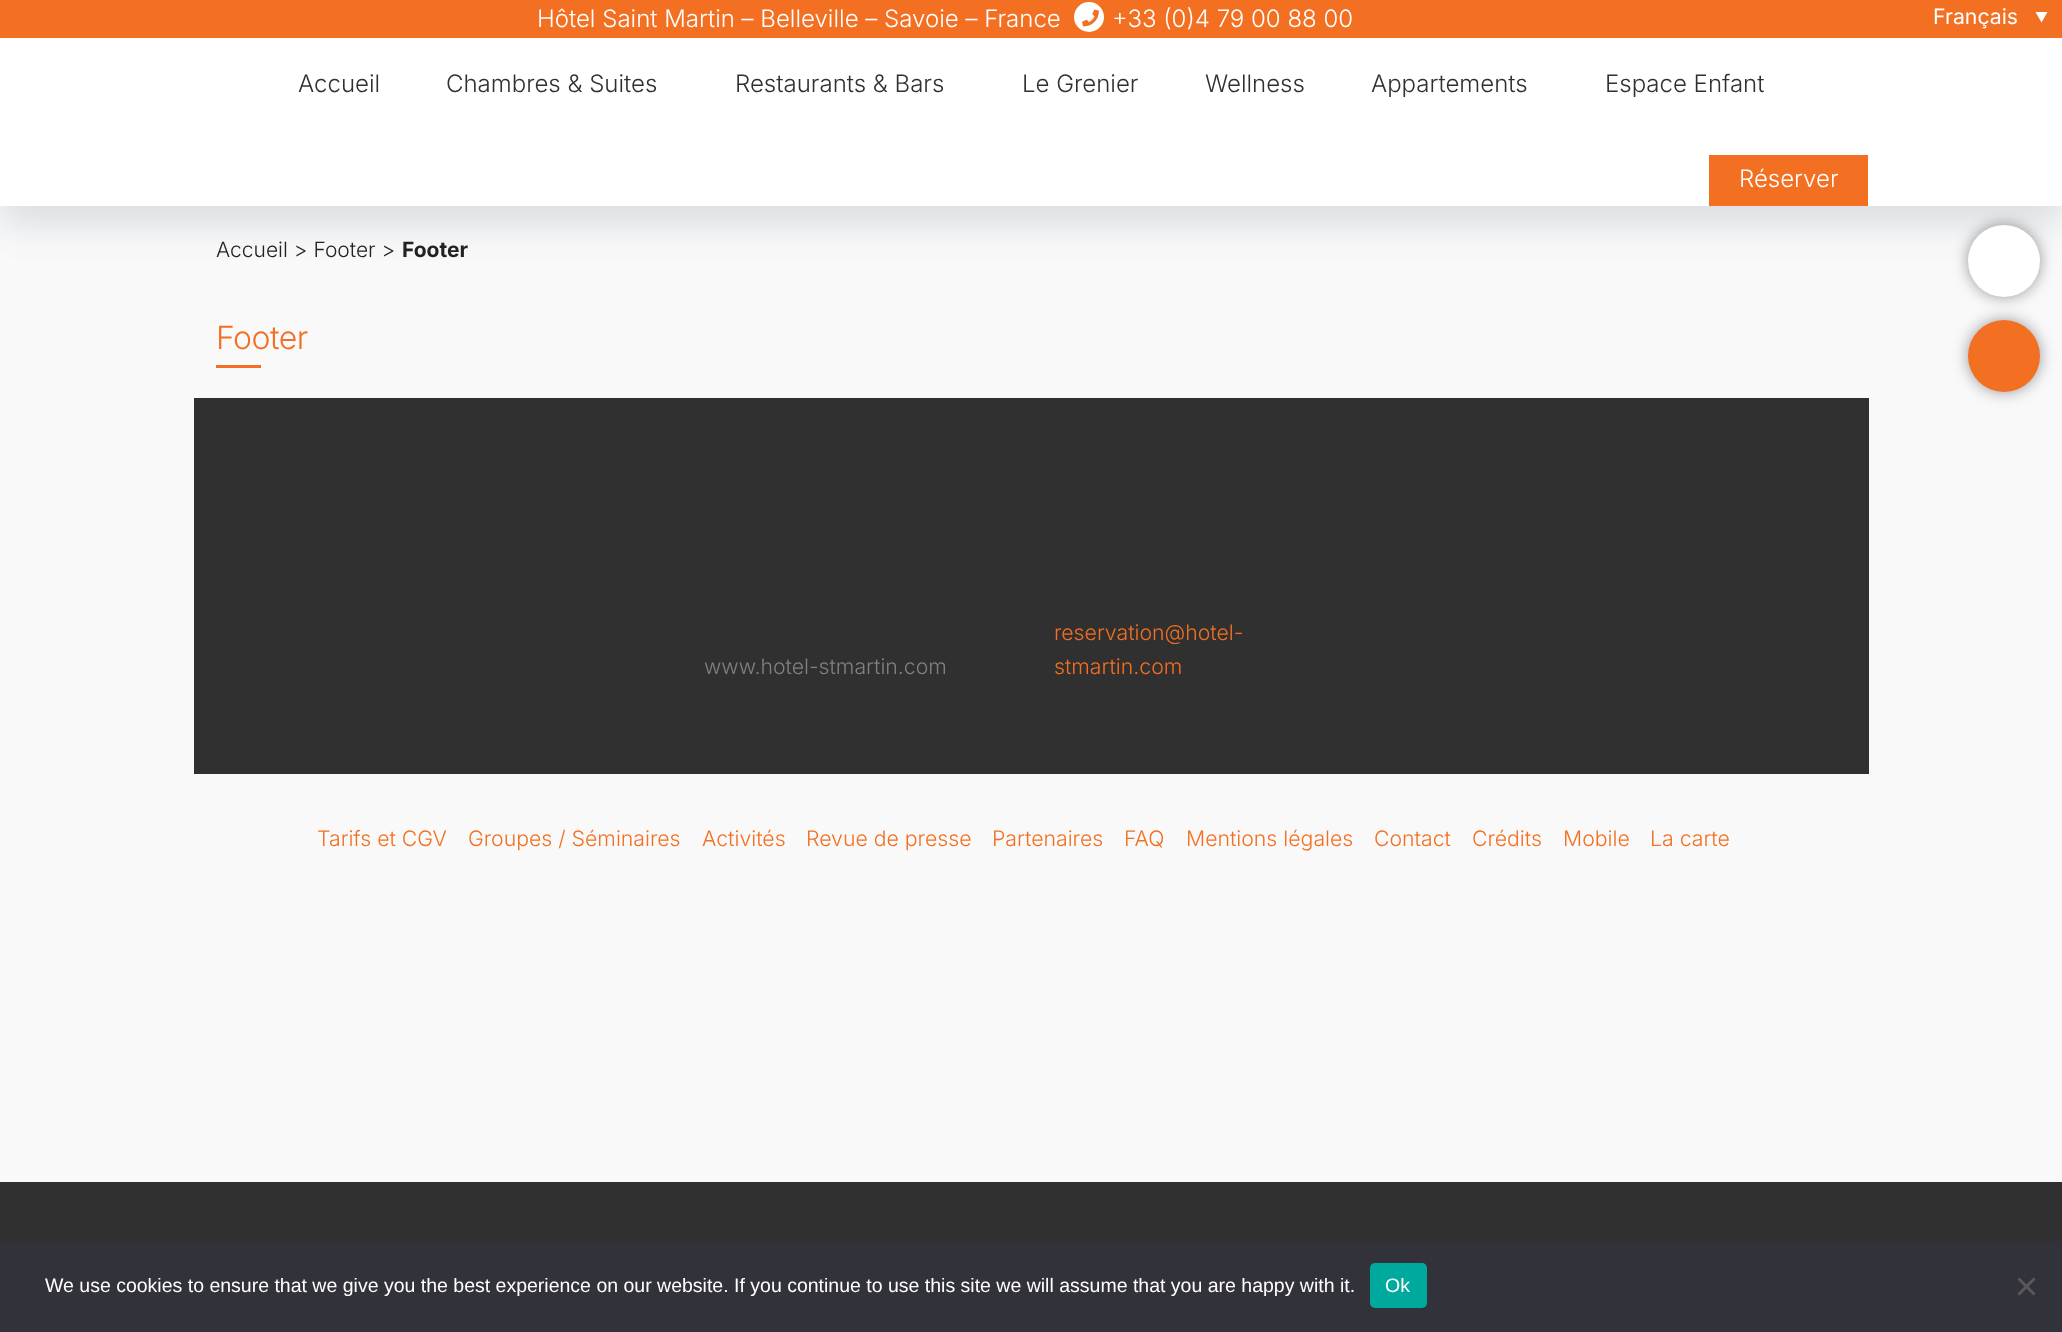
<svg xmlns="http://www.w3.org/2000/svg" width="2062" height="1332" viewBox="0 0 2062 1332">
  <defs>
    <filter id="blur1" x="-50%" y="-200%" width="200%" height="500%"><feGaussianBlur stdDeviation="16"/></filter>
    <filter id="blur2" x="-50%" y="-200%" width="200%" height="500%"><feGaussianBlur stdDeviation="7.5"/></filter>
  </defs>
  <rect width="100%" height="100%" fill="#f9f9f9"/>
  <rect x="0" y="21" width="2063" height="206" fill="#677a8d" fill-opacity="0.19" filter="url(#blur1)"/>
  <rect x="0" y="38" width="2062" height="168" fill="#ffffff"/>
  <rect x="0" y="0" width="2062" height="38" fill="#f37022"/>
  <text x="537" y="27" font-family="Inter" font-size="24" font-weight="300" fill="#ffffff">Hôtel Saint Martin – Belleville – Savoie – France</text>
  <circle cx="1089" cy="17" r="15" fill="#ffffff"/>
  <image x="1082" y="9" width="17" height="18" href="img1.png"/>
  <text x="1112" y="27" font-family="Inter" font-size="24" font-weight="300" fill="#ffffff">+33 (0)4 79 00 88 00</text>
  <text x="1933" y="24" font-family="Inter" font-size="21.25" fill="#ffffff">Français</text>
  <path d="M2035.5 12H2047.5L2041.5 22.5Z" fill="#ffffff"/>
  <text x="298" y="92" font-family="Inter" font-size="24" font-weight="300" fill="#303030">Accueil</text>
  <text x="446" y="92" font-family="Inter" font-size="24" font-weight="300" fill="#303030">Chambres &amp; Suites</text>
  <text x="735" y="92" font-family="Inter" font-size="24" font-weight="300" fill="#303030">Restaurants &amp; Bars</text>
  <text x="1022" y="92" font-family="Inter" font-size="24" font-weight="300" fill="#303030">Le Grenier</text>
  <text x="1205" y="92" font-family="Inter" font-size="24" font-weight="300" fill="#303030">Wellness</text>
  <text x="1371" y="92" font-family="Inter" font-size="24" font-weight="300" fill="#303030">Appartements</text>
  <text x="1605" y="92" font-family="Inter" font-size="24" font-weight="300" fill="#303030">Espace Enfant</text>
  <rect x="1709" y="155" width="159" height="51" fill="#f37022"/>
  <text x="1739" y="187" font-family="Inter" font-size="24" font-weight="300" fill="#ffffff">Réserver</text>
  <rect x="1968" y="225" width="72" height="72" rx="36" fill="#000000" fill-opacity="0.4" filter="url(#blur2)"/>
  <circle cx="2004" cy="261" r="36" fill="#ffffff"/>
  <rect x="1968" y="320" width="72" height="72" rx="36" fill="#000000" fill-opacity="0.4" filter="url(#blur2)"/>
  <circle cx="2004" cy="356" r="36" fill="#f37022"/>
  <text x="216" y="257" font-family="Inter" font-size="21" font-weight="300" fill="#222222">Accueil &gt; Footer &gt;</text>
  <text x="402" y="257" font-family="Inter" font-size="21" font-weight="bold" fill="#222222">Footer</text>
  <text x="216" y="349" font-family="Inter" font-size="32" font-weight="300" letter-spacing="-0.5" fill="#f37022">Footer</text>
  <rect x="216" y="365" width="45" height="3" fill="#f37022"/>
  <rect x="194" y="398" width="1675" height="376" fill="#303030"/>
  <text x="704" y="674" font-family="Inter" font-size="21.25" font-weight="300" fill="#808080">www.hotel-stmartin.com</text>
  <text x="1054" y="640" font-family="Inter" font-size="21.25" font-weight="300" fill="#f37022">reservation@hotel-</text>
  <text x="1054" y="674" font-family="Inter" font-size="21.25" font-weight="300" fill="#f37022">stmartin.com</text>
  <text x="317" y="846" font-family="Inter" font-size="21.25" font-weight="300" fill="#f37022">Tarifs et CGV</text>
  <text x="468" y="846" font-family="Inter" font-size="21.25" font-weight="300" fill="#f37022">Groupes / Séminaires</text>
  <text x="702" y="846" font-family="Inter" font-size="21.25" font-weight="300" fill="#f37022">Activités</text>
  <text x="806" y="846" font-family="Inter" font-size="21.25" font-weight="300" fill="#f37022">Revue de presse</text>
  <text x="992" y="846" font-family="Inter" font-size="21.25" font-weight="300" fill="#f37022">Partenaires</text>
  <text x="1124" y="846" font-family="Inter" font-size="21.25" font-weight="300" fill="#f37022">FAQ</text>
  <text x="1186" y="846" font-family="Inter" font-size="21.25" font-weight="300" fill="#f37022">Mentions légales</text>
  <text x="1374" y="846" font-family="Inter" font-size="21.25" font-weight="300" fill="#f37022">Contact</text>
  <text x="1472" y="846" font-family="Inter" font-size="21.25" font-weight="300" fill="#f37022">Crédits</text>
  <text x="1563" y="846" font-family="Inter" font-size="21.25" font-weight="300" fill="#f37022">Mobile</text>
  <text x="1650" y="846" font-family="Inter" font-size="21.25" font-weight="300" fill="#f37022">La carte</text>
  <rect x="0" y="1182" width="2062" height="59" fill="#303030"/>
  <rect x="0" y="1241" width="2062" height="91" fill="#32323a"/>
  <text x="45" y="1292" font-family="Liberation Sans" font-size="19.5" fill="#ffffff">We use cookies to ensure that we give you the best experience on our website. If you continue to use this site we will assume that you are happy with it.</text>
  <rect x="1370" y="1263" width="57" height="45" rx="5" fill="#00a99d"/>
  <text x="1385" y="1292" font-family="Liberation Sans" font-size="19.5" fill="#ffffff">Ok</text>
  <path d="M2033.5 1277.5L2035.5 1279.5L2019.5 1295.5L2017.5 1293.5Z" fill="#59595d"/>
  <path d="M2017.5 1279.5L2019.5 1277.5L2035.5 1293.5L2033.5 1295.5Z" fill="#59595d"/>
</svg>
